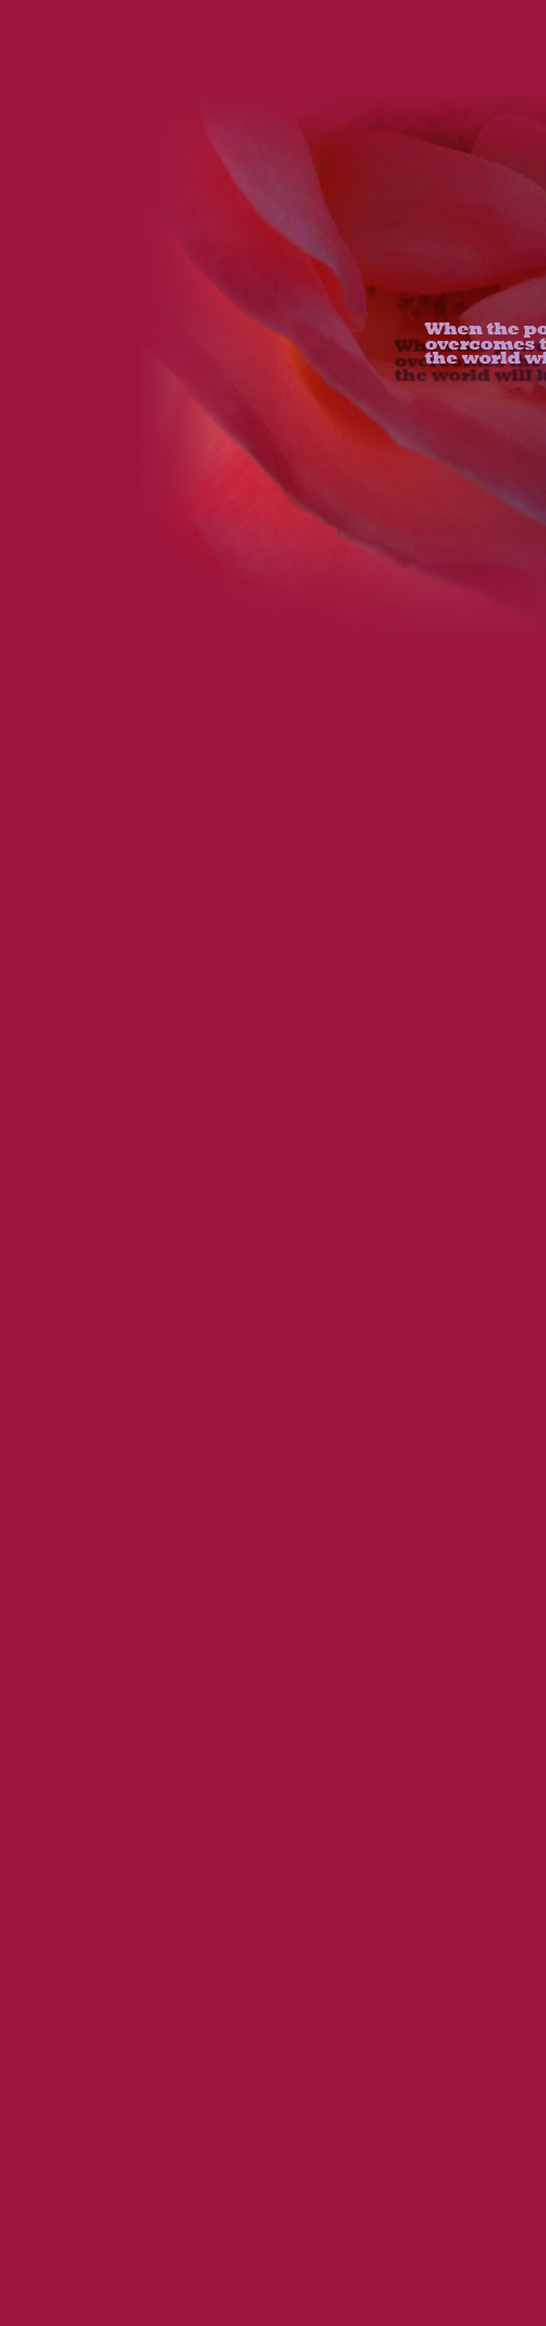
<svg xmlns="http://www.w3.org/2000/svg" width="546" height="2326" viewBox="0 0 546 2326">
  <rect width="100%" height="100%" fill="#9c153d"/>
  <image x="141" y="96" width="405" height="536" href="img1.png"/>
</svg>
